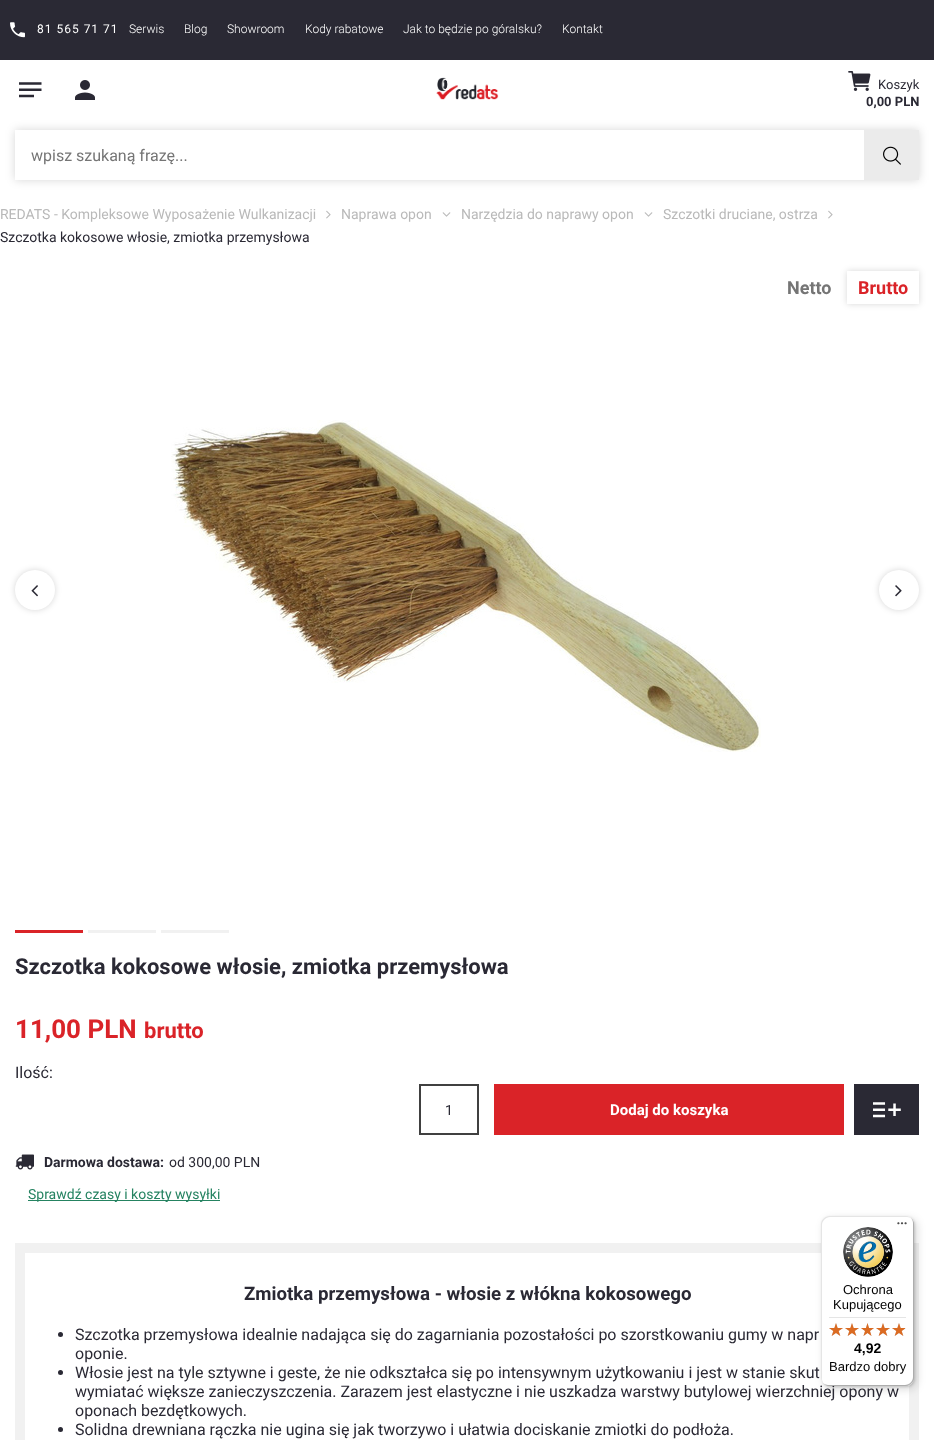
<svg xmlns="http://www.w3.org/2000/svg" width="934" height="1440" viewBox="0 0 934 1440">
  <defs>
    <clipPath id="clip1"><path d="M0 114H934V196H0ZM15 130H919V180H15Z" clip-rule="evenodd"/></clipPath>
    <filter id="blur1" x="-50%" y="-200%" width="200%" height="500%"><feGaussianBlur stdDeviation="5"/></filter>
    <clipPath id="clip2"><path d="M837 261H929V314H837ZM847 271H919V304H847Z" clip-rule="evenodd"/></clipPath>
    <filter id="blur2" x="-50%" y="-200%" width="200%" height="500%"><feGaussianBlur stdDeviation="3"/></filter>
    <filter id="blur3" x="-50%" y="-200%" width="200%" height="500%"><feGaussianBlur stdDeviation="4"/></filter>
    <filter id="blur4" x="-50%" y="-200%" width="200%" height="500%"><feGaussianBlur stdDeviation="1"/></filter>
  </defs>
  <rect width="100%" height="100%" fill="#ffffff"/>
  <rect x="0" y="0" width="934" height="60" fill="#2a2934"/>
  <image x="10" y="22" width="15" height="16" href="img1.png"/>
  <text x="37" y="33" font-family="Roboto" font-size="12" letter-spacing="1" fill="#ffffff">81 565 71 71</text>
  <text x="129" y="33" font-family="Roboto" font-size="12" font-weight="300" fill="#ffffff">Serwis</text>
  <text x="184" y="33" font-family="Roboto" font-size="12" font-weight="300" fill="#ffffff">Blog</text>
  <text x="227" y="33" font-family="Roboto" font-size="12" font-weight="300" fill="#ffffff">Showroom</text>
  <text x="305" y="33" font-family="Roboto" font-size="12" font-weight="300" fill="#ffffff">Kody rabatowe</text>
  <text x="403" y="33" font-family="Roboto" font-size="12" font-weight="300" fill="#ffffff">Jak to będzie po góralsku?</text>
  <text x="562" y="33" font-family="Roboto" font-size="12" font-weight="300" fill="#ffffff">Kontakt</text>
  <image x="19" y="82" width="23" height="16" href="img2.png"/>
  <rect x="75" y="98" width="20" height="2" fill="#2a2934"/>
  <image x="75" y="80" width="20" height="18" href="img3.png"/>
  <image x="436" y="77" width="63" height="23" href="img4.png"/>
  <image x="848" y="71" width="23" height="20" href="img5.png"/>
  <text x="878" y="89" font-family="Roboto" font-size="13" fill="#2a2934">Koszyk</text>
  <text x="866" y="106" font-family="Roboto" font-size="13" font-weight="bold" fill="#2a2934">0,00 PLN</text>
  <g clip-path="url(#clip1)">
    <rect x="15" y="130" width="904" height="50" fill="#000000" fill-opacity="0.16" filter="url(#blur1)"/>
  </g>
  <text x="31" y="161" font-family="Roboto" font-size="16" fill="#757575">wpisz szukaną frazę...</text>
  <rect x="864" y="130" width="55" height="50" fill="#ebebeb"/>
  <image x="883" y="146" width="18" height="19" href="img6.png"/>
  <text x="0" y="219" font-family="Roboto" font-size="14" fill="#b9b9b9">REDATS - Kompleksowe Wyposażenie Wulkanizacji</text>
  <image x="326" y="210" width="5" height="9" href="img7.png"/>
  <text x="341" y="219" font-family="Roboto" font-size="14" fill="#b9b9b9">Naprawa opon</text>
  <image x="442" y="212" width="9" height="5" href="img8.png"/>
  <text x="461" y="219" font-family="Roboto" font-size="14" fill="#b9b9b9">Narzędzia do naprawy opon</text>
  <image x="644" y="212" width="9" height="5" href="img8.png"/>
  <text x="663" y="219" font-family="Roboto" font-size="14" fill="#b9b9b9">Szczotki druciane, ostrza</text>
  <image x="828" y="210" width="5" height="9" href="img7.png"/>
  <text x="0" y="242" font-family="Roboto" font-size="14" fill="#2a2934">Szczotka kokosowe włosie, zmiotka przemysłowa</text>
  <text x="787" y="294" font-family="Roboto" font-size="18" font-weight="bold" fill="#757575">Netto</text>
  <g clip-path="url(#clip2)">
    <rect x="847" y="271" width="72" height="33" fill="#000000" fill-opacity="0.16" filter="url(#blur2)"/>
  </g>
  <text x="858" y="294" font-family="Roboto" font-size="18" font-weight="bold" fill="#da2328">Brutto</text>
  <rect x="15" y="570" width="40" height="40" rx="20" fill="#000000" fill-opacity="0.16" filter="url(#blur2)"/>
  <circle cx="35" cy="590" r="20" fill="#ffffff"/>
  <image x="31" y="585" width="7" height="12" href="img9.png"/>
  <image x="171" y="420" width="590" height="332" href="img10.png"/>
  <rect x="879" y="570" width="40" height="40" rx="20" fill="#000000" fill-opacity="0.16" filter="url(#blur2)"/>
  <circle cx="899" cy="590" r="20" fill="#ffffff"/>
  <image x="895" y="585" width="7" height="12" href="img11.png"/>
  <rect x="15" y="930" width="68" height="3" fill="#da2328"/>
  <rect x="88" y="930" width="68" height="3" fill="#f1f1f1"/>
  <rect x="161" y="930" width="68" height="3" fill="#f1f1f1"/>
  <text x="15" y="974" font-family="Roboto" font-size="22" font-weight="bold" fill="#2a2934">Szczotka kokosowe włosie, zmiotka przemysłowa</text>
  <text x="15" y="1038" font-family="Roboto" font-size="26" font-weight="bold" fill="#da2328">11,00 PLN</text>
  <text x="144" y="1038" font-family="Roboto" font-size="22" font-weight="bold" fill="#da2328">brutto</text>
  <text x="15" y="1078" font-family="Roboto" font-size="16" fill="#2a2934">Ilość:</text>
  <rect x="420" y="1085" width="58" height="49" fill="none" stroke="#404040" stroke-width="2"/>
  <text x="445" y="1115" font-family="Roboto" font-size="14" fill="#2a2934">1</text>
  <rect x="494" y="1084" width="350" height="51" fill="#da2328"/>
  <text x="610" y="1115" font-family="Roboto" font-size="15" font-weight="bold" fill="#ffffff">Dodaj do koszyka</text>
  <rect x="854" y="1084" width="65" height="51" fill="#2a2934"/>
  <image x="873" y="1102" width="28" height="16" href="img12.png"/>
  <image x="15" y="1154" width="19" height="16" href="img13.png"/>
  <text x="44" y="1167" font-family="Roboto" font-size="14" font-weight="bold" fill="#2a2934">Darmowa dostawa:</text>
  <text x="169" y="1167" font-family="Roboto" font-size="14" fill="#2a2934">od 300,00 PLN</text>
  <rect x="28" y="1200" width="192" height="1" fill="#258361"/>
  <text x="28" y="1199" font-family="Roboto" font-size="14" fill="#258361">Sprawdź czasy i koszty wysyłki</text>
  <rect x="15" y="1243" width="904" height="197" fill="#f1f1f1"/>
  <rect x="25" y="1253" width="884" height="187" fill="#ffffff"/>
  <text x="244" y="1300" font-family="Roboto" font-size="18.7" font-weight="bold" fill="#2a2934">Zmiotka przemysłowa - włosie z włókna kokosowego</text>
  <circle cx="60.5" cy="1334.5" r="2.5" fill="#2a2934"/>
  <text x="75" y="1340" font-family="Roboto" font-size="16" fill="#2a2934">Szczotka przemysłowa idealnie nadająca się do zagarniania pozostałości po szorstkowaniu gumy w napr</text>
  <text x="75" y="1359" font-family="Roboto" font-size="16" fill="#2a2934">oponie.</text>
  <circle cx="60.5" cy="1372.5" r="2.5" fill="#2a2934"/>
  <text x="75" y="1378" font-family="Roboto" font-size="16" fill="#2a2934">Włosie jest na tyle sztywne i geste, że nie odkształca się po intensywnym użytkowaniu i jest w stanie skut</text>
  <text x="75" y="1397" font-family="Roboto" font-size="16" fill="#2a2934">wymiatać większe zanieczyszczenia. Zarazem jest elastyczne i nie uszkadza warstwy butylowej wierzchniej opony w</text>
  <text x="75" y="1416" font-family="Roboto" font-size="16" fill="#2a2934">oponach bezdętkowych.</text>
  <circle cx="60.5" cy="1429.5" r="2.5" fill="#2a2934"/>
  <text x="75" y="1435" font-family="Roboto" font-size="16" fill="#2a2934">Solidna drewniana rączka nie ugina się jak tworzywo i ułatwia dociskanie zmiotki do podłoża.</text>
  <rect x="824" y="1219" width="93" height="170" rx="8" fill="#000000" fill-opacity="0.15" filter="url(#blur3)"/>
  <rect x="822" y="1217" width="93" height="170" rx="8" fill="#000000" fill-opacity="0.15" filter="url(#blur4)"/>
  <rect x="821" y="1216" width="93" height="170" rx="8" fill="#ffffff"/>
  <path d="M830 1217H907C909 1217 911 1218 913 1220C911 1218 909 1216 906 1216H829C825 1216 821 1220 821 1224V1378C821 1381 823 1383 825 1385C823 1383 822 1381 822 1379V1225C822 1221 826 1217 830 1217Z" fill="#e5e5e5"/>
  <path d="M822 1382C824 1384 826 1386 829 1386H906C910 1386 914 1382 914 1378V1224C914 1221 912 1219 910 1217C912 1219 913 1221 913 1223V1377C913 1381 909 1385 905 1385H828C826 1385 824 1384 822 1382Z" fill="#000000" fill-opacity="0.2"/>
  <path d="M823 1383C824 1385 827 1386 829 1386H906C910 1386 914 1382 914 1378V1224C914 1222 913 1219 911 1218C912 1219 913 1221 913 1223V1377C913 1382 910 1385 905 1385H828C826 1385 824 1384 823 1383Z" fill="#323232" fill-opacity="0.2"/>
  <image x="897" y="1222" width="10" height="3" href="img14.png"/>
  <path d="M906 1386C910.5 1386 914 1382.5 914 1378C914 1382 910 1386 906 1386Z" fill="#dfdfdf"/>
  <image x="843" y="1227" width="50" height="50" href="img15.png"/>
  <text x="843" y="1294" font-family="Liberation Sans" font-size="13" fill="#000000">Ochrona</text>
  <text x="833" y="1309" font-family="Liberation Sans" font-size="13" fill="#000000">Kupującego</text>
  <rect x="829" y="1317" width="77" height="1" fill="#e5e5e5"/>
  <image x="829" y="1323" width="14" height="13" href="img16.png"/>
  <image x="845" y="1323" width="14" height="13" href="img16.png"/>
  <image x="861" y="1323" width="13" height="13" href="img17.png"/>
  <image x="876" y="1323" width="14" height="13" href="img16.png"/>
  <image x="892" y="1323" width="14" height="13" href="img16.png"/>
  <image x="829" y="1323" width="14" height="13" href="img18.png"/>
  <image x="845" y="1323" width="14" height="13" href="img18.png"/>
  <image x="861" y="1323" width="13" height="13" href="img19.png"/>
  <image x="876" y="1323" width="14" height="13" href="img18.png"/>
  <image x="892" y="1323" width="13" height="13" href="img20.png"/>
  <text x="854" y="1353" font-family="Liberation Sans" font-size="14" font-weight="bold" fill="#000000">4,92</text>
  <text x="829" y="1371" font-family="Liberation Sans" font-size="13" fill="#000000">Bardzo dobry</text>
</svg>
